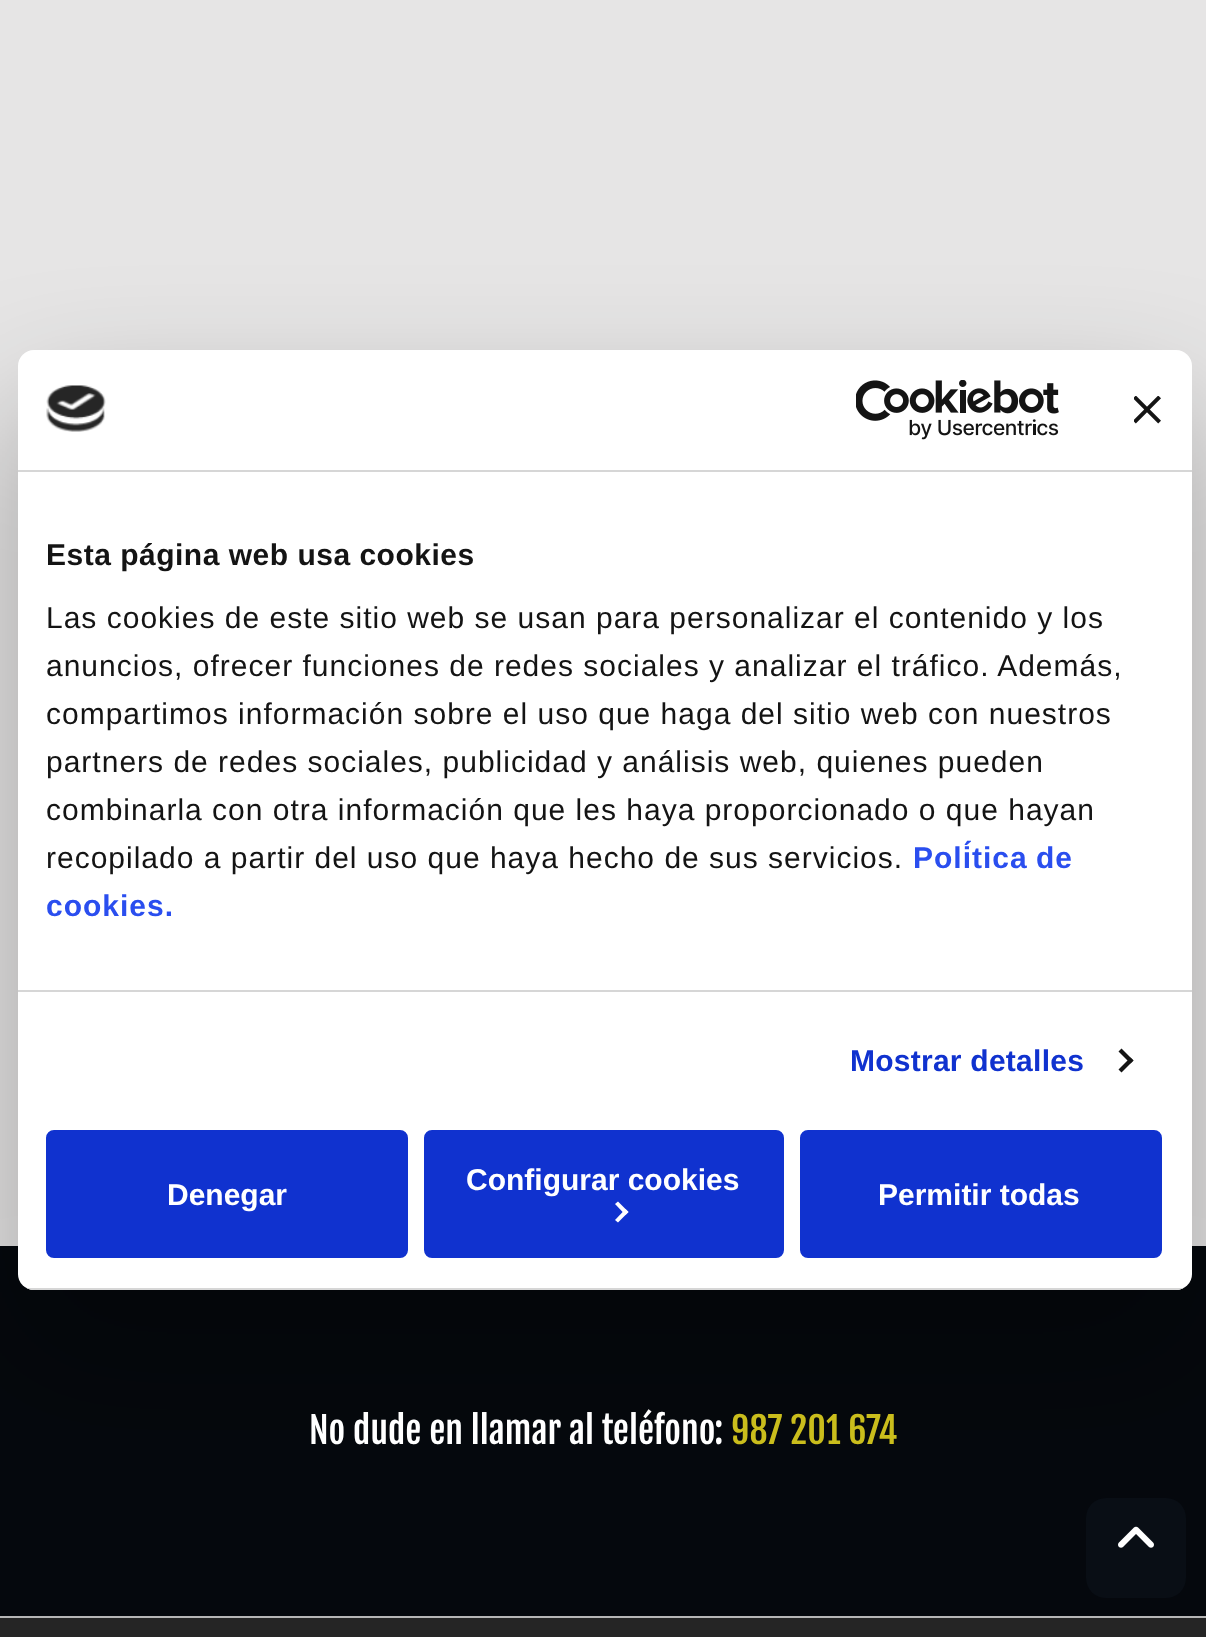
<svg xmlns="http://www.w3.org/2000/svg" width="1206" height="1637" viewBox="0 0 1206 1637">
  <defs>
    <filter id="blur1" x="-50%" y="-200%" width="200%" height="500%"><feGaussianBlur stdDeviation="68"/></filter>
    <clipPath id="clip1"><rect x="18" y="350" width="1174" height="940" rx="16"/></clipPath>
  </defs>
  <rect width="100%" height="100%" fill="#e6e5e5"/>
  <rect x="0" y="1246" width="1206" height="370" fill="#05080d"/>
  <rect x="1086" y="1498" width="100" height="100" rx="20" fill="#090e15"/>
  <image x="1118" y="1526" width="36" height="22" href="img4.png"/>
  <rect x="18" y="414" width="1174" height="940" rx="16" fill="#000000" fill-opacity="0.3" filter="url(#blur1)"/>
  <rect x="18" y="350" width="1174" height="940" rx="16" fill="#ffffff"/>
  <rect x="18" y="470" width="1174" height="2" fill="#d6d6d6"/>
  <image x="46" y="385" width="60" height="47" href="img1.png"/>
  <image x="856" y="380" width="203" height="60" href="img2.png"/>
  <image x="1134" y="396" width="27" height="28" href="img3.png"/>
  <rect x="18" y="990" width="1174" height="2" fill="#d6d6d6"/>
  <text x="46" y="565" font-family="Liberation Sans" font-size="30" font-weight="bold" letter-spacing="0.5" fill="#141414">Esta página web usa cookies</text>
  <text x="46" y="628" font-family="Liberation Sans" font-size="30" letter-spacing="1" fill="#141414">Las cookies de este sitio web se usan para personalizar el contenido y los</text>
  <text x="46" y="676" font-family="Liberation Sans" font-size="30" letter-spacing="1" fill="#141414">anuncios, ofrecer funciones de redes sociales y analizar el tráfico. Además,</text>
  <text x="46" y="724" font-family="Liberation Sans" font-size="30" letter-spacing="1" fill="#141414">compartimos información sobre el uso que haga del sitio web con nuestros</text>
  <text x="46" y="772" font-family="Liberation Sans" font-size="30" letter-spacing="1" fill="#141414">partners de redes sociales, publicidad y análisis web, quienes pueden</text>
  <text x="46" y="820" font-family="Liberation Sans" font-size="30" letter-spacing="1" fill="#141414">combinarla con otra información que les haya proporcionado o que hayan</text>
  <text x="46" y="868" font-family="Liberation Sans" font-size="30" letter-spacing="1" fill="#141414">recopilado a partir del uso que haya hecho de sus servicios.</text>
  <text x="913" y="868" word-spacing="-1" font-family="Liberation Sans" font-size="30" font-weight="bold" letter-spacing="1" fill="#2a4eef">Política de</text>
  <text x="46" y="916" font-family="Liberation Sans" font-size="30" font-weight="bold" letter-spacing="1" fill="#2a4eef">cookies.</text>
  <text x="850" y="1071" font-family="Liberation Sans" font-size="30" font-weight="bold" letter-spacing="0.25" fill="#1032cf">Mostrar detalles</text>
  <path d="M1121.5 1048.5L1133.5 1060.5L1130.5 1063.5L1118.5 1051.5Z" fill="#141414"/>
  <path d="M1130.5 1057.5L1133.5 1060.5L1121.5 1072.5L1118.5 1069.5Z" fill="#141414"/>
  <g clip-path="url(#clip1)">
    <rect x="18" y="1288" width="1174" height="2" fill="#d6d6d6"/>
  </g>
  <rect x="48" y="1132" width="358" height="124" rx="6" fill="#1032cf" stroke="#1032cf" stroke-width="4"/>
  <text x="167" y="1205" font-family="Liberation Sans" font-size="30" font-weight="bold" fill="#ffffff">Denegar</text>
  <rect x="426" y="1132" width="356" height="124" rx="6" fill="#1032cf" stroke="#1032cf" stroke-width="4"/>
  <text x="466" y="1190" font-family="Liberation Sans" font-size="30" font-weight="bold" fill="#ffffff">Configurar cookies</text>
  <path d="M618 1201.5L628.5 1212L625.5 1215L615 1204Z" fill="#ffffff"/>
  <path d="M625.5 1209L628.5 1212L618 1222.5L615 1220Z" fill="#ffffff"/>
  <rect x="802" y="1132" width="358" height="124" rx="6" fill="#1032cf" stroke="#1032cf" stroke-width="4"/>
  <text x="878" y="1205" font-family="Liberation Sans" font-size="30" font-weight="bold" fill="#ffffff">Permitir todas</text>
  <text x="309" y="1444" font-family="Fjalla One" font-size="36" fill="#ffffff">No dude en llamar al teléfono:</text>
  <text x="731" y="1444" font-family="Fjalla One" font-size="36" fill="#cabd1c">987 201 674</text>
  <rect x="0" y="1618" width="1206" height="19" fill="#252525"/>
  <rect x="0" y="1616" width="1206" height="2" fill="#b6b6b6"/>
</svg>
